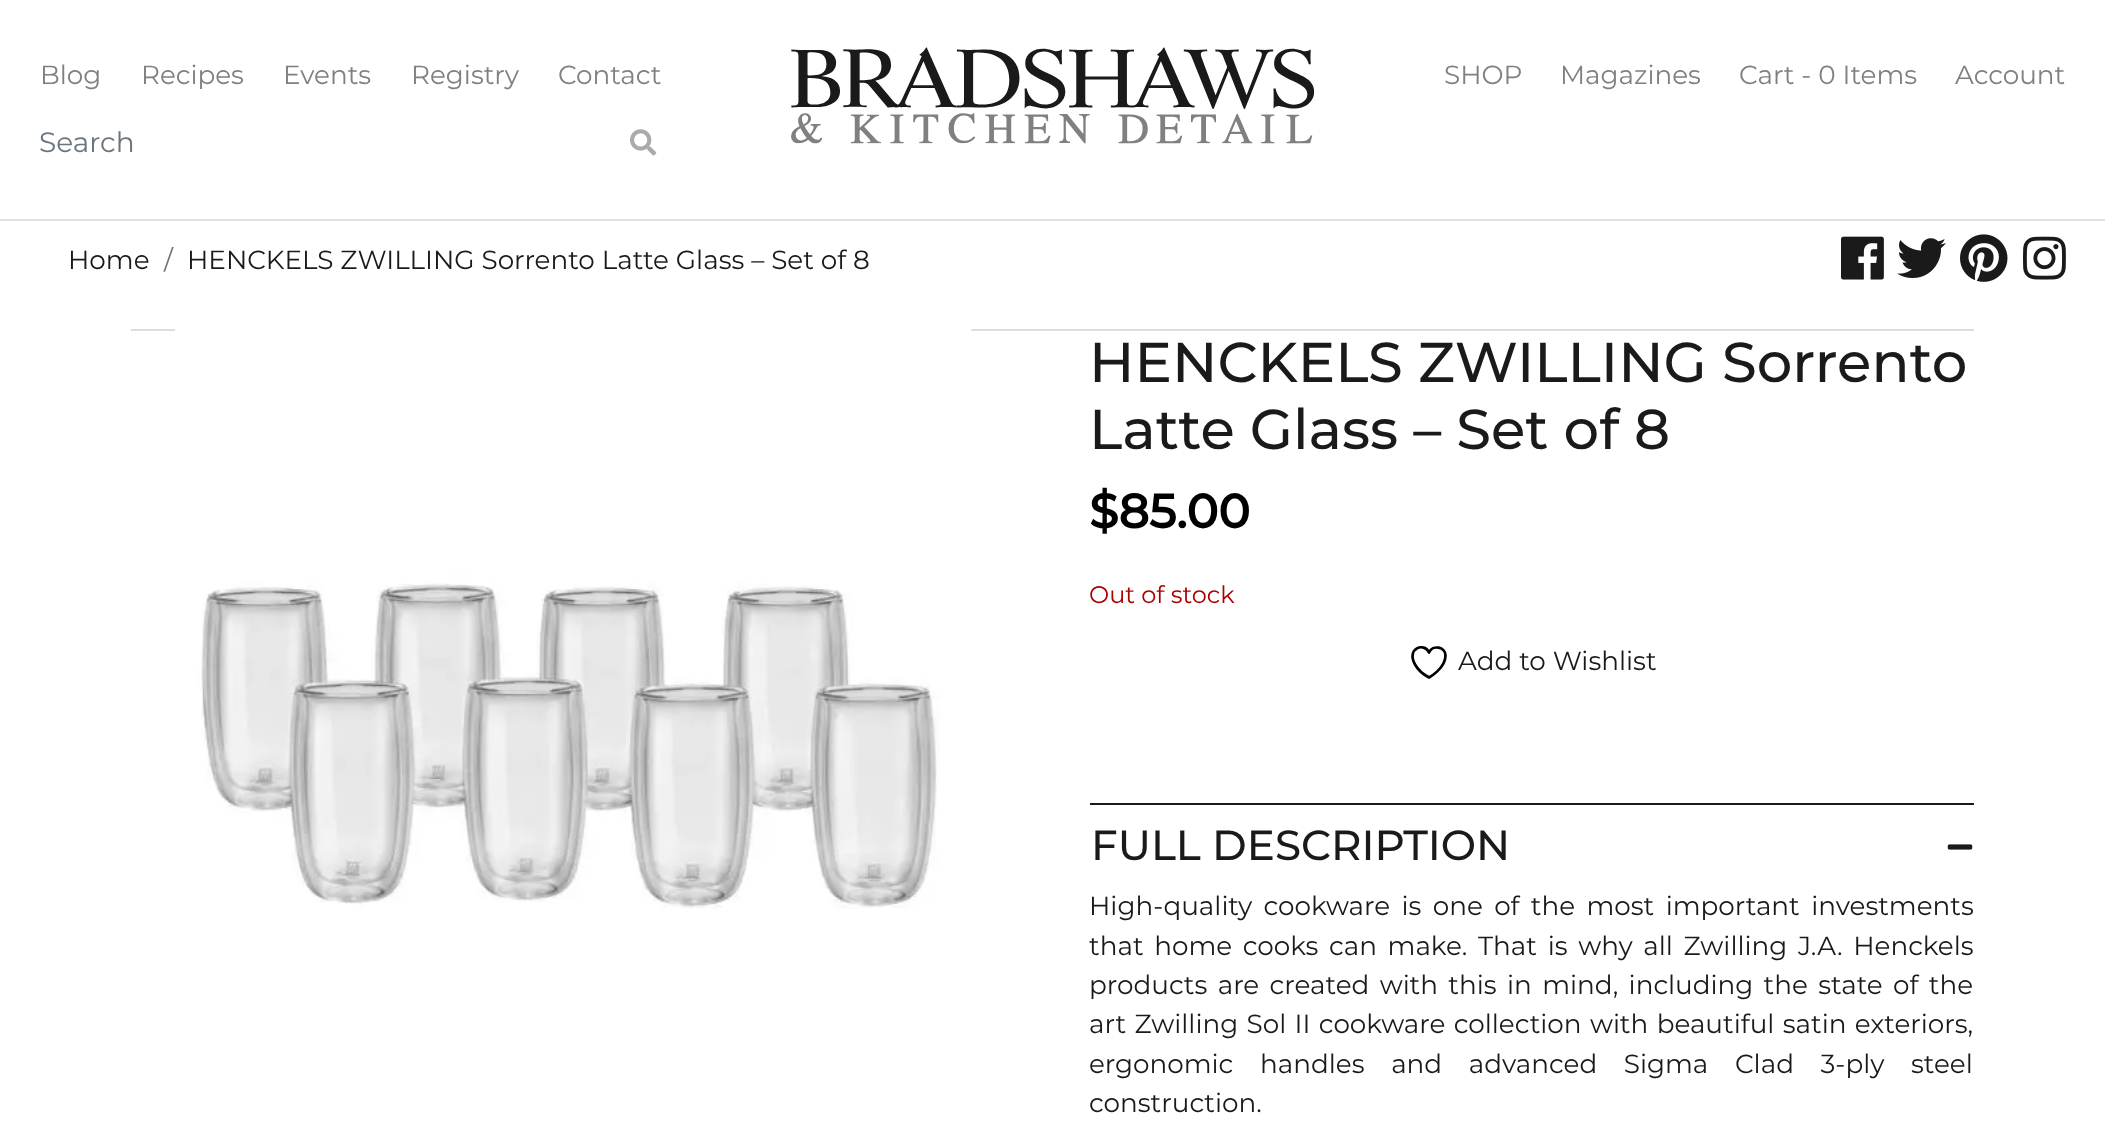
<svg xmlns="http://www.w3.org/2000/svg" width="2105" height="1132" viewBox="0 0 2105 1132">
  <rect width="100%" height="100%" fill="#ffffff"/>
  <rect x="0" y="219" width="2105" height="2" fill="#dee2e6"/>
  <text x="40" y="84" font-family="Montserrat" font-size="26.25" fill="#808080">Blog</text>
  <text x="141" y="84" font-family="Montserrat" font-size="26.25" fill="#808080">Recipes</text>
  <text x="283" y="84" font-family="Montserrat" font-size="26.25" fill="#808080">Events</text>
  <text x="411" y="84" font-family="Montserrat" font-size="26.25" fill="#808080">Registry</text>
  <text x="558" y="84" font-family="Montserrat" font-size="26.25" fill="#808080">Contact</text>
  <text x="39" y="152" font-family="Montserrat" font-size="28" fill="#6c757d">Search</text>
  <image x="630" y="129" width="27" height="27" href="img1.png"/>
  <image x="791" y="47" width="523" height="97" href="img2.png"/>
  <text x="1444" y="84" font-family="Montserrat" font-size="26.25" fill="#808080">SHOP</text>
  <text x="1560" y="84" font-family="Montserrat" font-size="26.25" fill="#808080">Magazines</text>
  <text x="1739" y="84" font-family="Montserrat" font-size="26.25" fill="#808080">Cart - 0 Items</text>
  <text x="1955" y="84" font-family="Montserrat" font-size="26.25" fill="#808080">Account</text>
  <text x="68" y="269" font-family="Montserrat" font-size="26.25" fill="#1a1a1a">Home</text>
  <text x="164" y="269" font-family="Montserrat" font-size="26.25" fill="#6c757d">/</text>
  <text x="187" y="269" font-family="Montserrat" font-size="26.25" fill="#1a1a1a">HENCKELS ZWILLING Sorrento Latte Glass – Set of 8</text>
  <image x="1841" y="236" width="43" height="44" href="img3.png"/>
  <image x="1897" y="238" width="49" height="40" href="img4.png"/>
  <image x="1960" y="234" width="48" height="48" href="img5.png"/>
  <image x="2023" y="236" width="43" height="44" href="img6.png"/>
  <rect x="131" y="329" width="1843" height="2" fill="#dddddd"/>
  <image x="175" y="329" width="797" height="580" href="img7.png"/>
  <text x="1089" y="382" font-family="Montserrat" font-size="56" font-weight="500" fill="#1a1a1a">HENCKELS ZWILLING Sorrento</text>
  <text x="1089" y="449" font-family="Montserrat" font-size="56" font-weight="500" fill="#1a1a1a">Latte Glass – Set of 8</text>
  <text x="1089" y="528" font-family="Montserrat" font-size="47.5" font-weight="bold" fill="#000000">$85.00</text>
  <text x="1089" y="603" font-family="Montserrat" font-size="24" fill="#aa0000">Out of stock</text>
  <path d="M1445.5 655.5C1445.5 646.5 1432.5 644.5 1429 652.5C1424.5 642 1406 648 1415 664.5C1418 670 1423.5 674.5 1429 677.5C1429 677.5 1445.5 668.5 1445.5 655.5Z" fill="none" stroke="#000000" stroke-width="2.7" stroke-linecap="round" stroke-linejoin="round"/>
  <text x="1458" y="670" font-family="Montserrat" font-size="26.25" fill="#1a1a1a">Add to Wishlist</text>
  <rect x="1090" y="803" width="884" height="2" fill="#1a1a1a"/>
  <text x="1091" y="860" font-family="Montserrat" font-size="42" font-weight="500" fill="#1a1a1a">FULL DESCRIPTION</text>
  <image x="1947" y="844" width="26" height="6" href="img8.png"/>
  <text x="1089" y="915" word-spacing="4.5" font-family="Montserrat" font-size="26.25" fill="#1a1a1a">High-quality cookware is one of the most important investments</text>
  <text x="1089" y="955" word-spacing="3.75" font-family="Montserrat" font-size="26.25" fill="#1a1a1a">that home cooks can make. That is why all Zwilling J.A. Henckels</text>
  <text x="1089" y="994" word-spacing="3.5" font-family="Montserrat" font-size="26.25" fill="#1a1a1a">products are created with this in mind, including the state of the</text>
  <text x="1089" y="1033" word-spacing="1.5" font-family="Montserrat" font-size="26.25" fill="#1a1a1a">art Zwilling Sol II cookware collection with beautiful satin exteriors,</text>
  <text x="1089" y="1073" word-spacing="19.75" font-family="Montserrat" font-size="26.25" fill="#1a1a1a">ergonomic handles and advanced Sigma Clad 3-ply steel</text>
  <text x="1089" y="1112" font-family="Montserrat" font-size="26.25" fill="#1a1a1a">construction.</text>
</svg>
